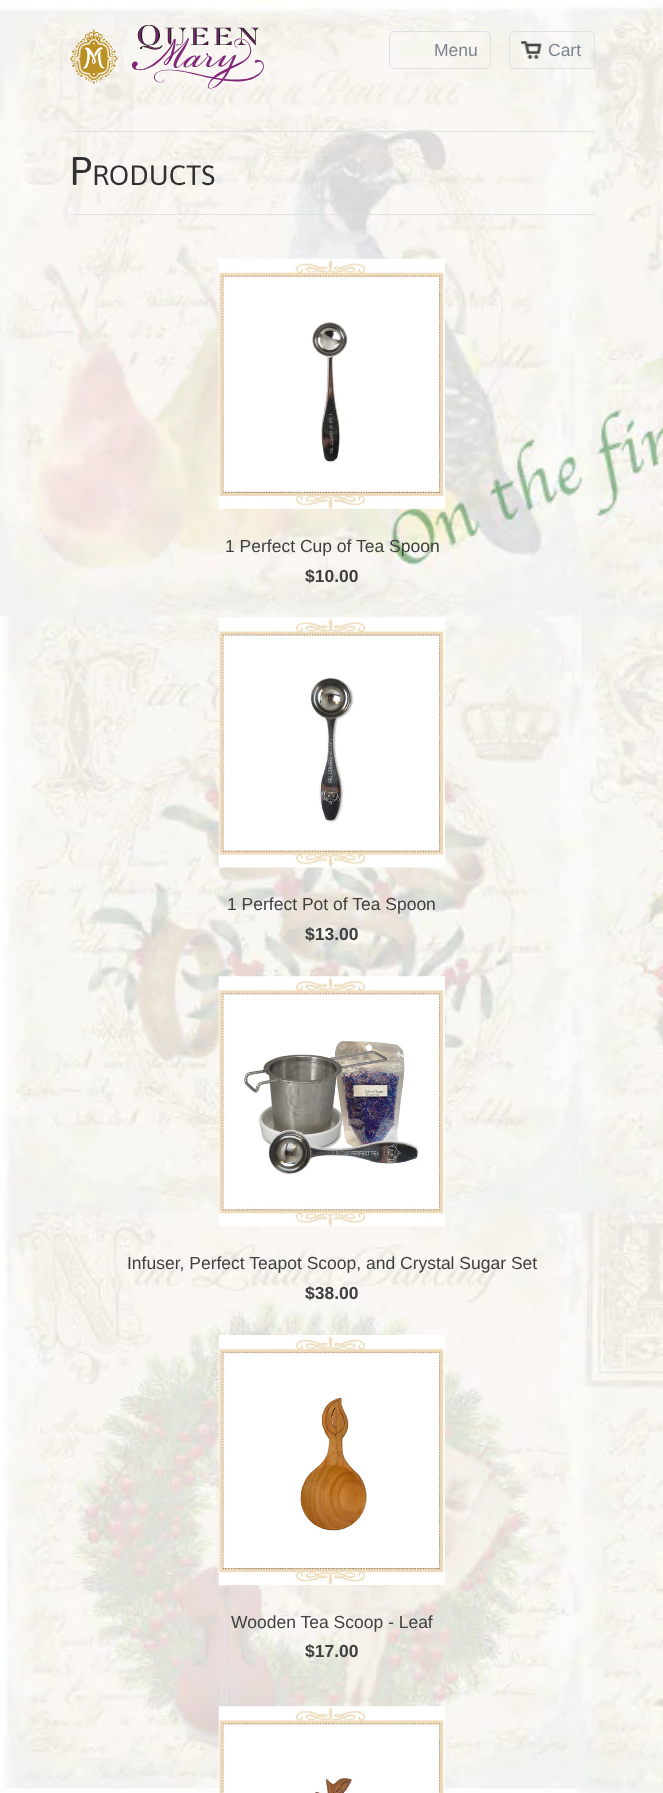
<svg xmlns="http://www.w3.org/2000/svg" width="663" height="1793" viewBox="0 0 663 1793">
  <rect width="100%" height="100%" fill="#ffffff"/>
  <image x="0" y="0" width="663" height="1793" href="img1.png"/>
  <image x="70" y="25" width="194" height="64" href="img2.png"/>
  <rect x="389.5" y="31.5" width="101" height="37" rx="4.5" fill="none" stroke="#dbe3e5"/>
  <text x="434" y="56" font-family="Liberation Sans" font-size="17.5" fill="#7b858f">Menu</text>
  <image x="521" y="41" width="21" height="18" href="img3.png"/>
  <rect x="509.5" y="31.5" width="85" height="37" rx="4.5" fill="none" stroke="#dbe3e5"/>
  <text x="548" y="56" font-family="Liberation Sans" font-size="17.5" fill="#7b858f">Cart</text>
  <rect x="70" y="131" width="525" height="1" fill="#dbe3e5"/>
  <rect x="70" y="214" width="525" height="1" fill="#dbe3e5"/>
  <text x="69" y="185" font-family="Asap" font-size="40" fill="#303030">P</text>
  <text x="92" y="185" font-family="Asap" font-size="28" fill="#303030">RODUCTS</text>
  <image x="218" y="258" width="227" height="251" href="img4.png"/>
  <text x="225" y="552" font-family="Liberation Sans" font-size="17.5" fill="#404040">1 Perfect Cup of Tea Spoon</text>
  <text x="305" y="582" font-family="Liberation Sans" font-size="17.5" font-weight="bold" fill="#404040">$10.00</text>
  <image x="218" y="617" width="227" height="251" href="img5.png"/>
  <text x="227" y="910" font-family="Liberation Sans" font-size="17.5" fill="#404040">1 Perfect Pot of Tea Spoon</text>
  <text x="305" y="940" font-family="Liberation Sans" font-size="17.5" font-weight="bold" fill="#404040">$13.00</text>
  <image x="218" y="976" width="227" height="251" href="img6.png"/>
  <text x="127" y="1269" font-family="Liberation Sans" font-size="17.5" fill="#404040">Infuser, Perfect Teapot Scoop, and Crystal Sugar Set</text>
  <text x="305" y="1299" font-family="Liberation Sans" font-size="17.5" font-weight="bold" fill="#404040">$38.00</text>
  <image x="218" y="1335" width="227" height="250" href="img7.png"/>
  <text x="231" y="1628" font-family="Liberation Sans" font-size="17.5" fill="#404040">Wooden Tea Scoop - Leaf</text>
  <text x="305" y="1657" font-family="Liberation Sans" font-size="17.5" font-weight="bold" fill="#404040">$17.00</text>
  <image x="218" y="1706" width="227" height="87" href="img8.png"/>
</svg>
